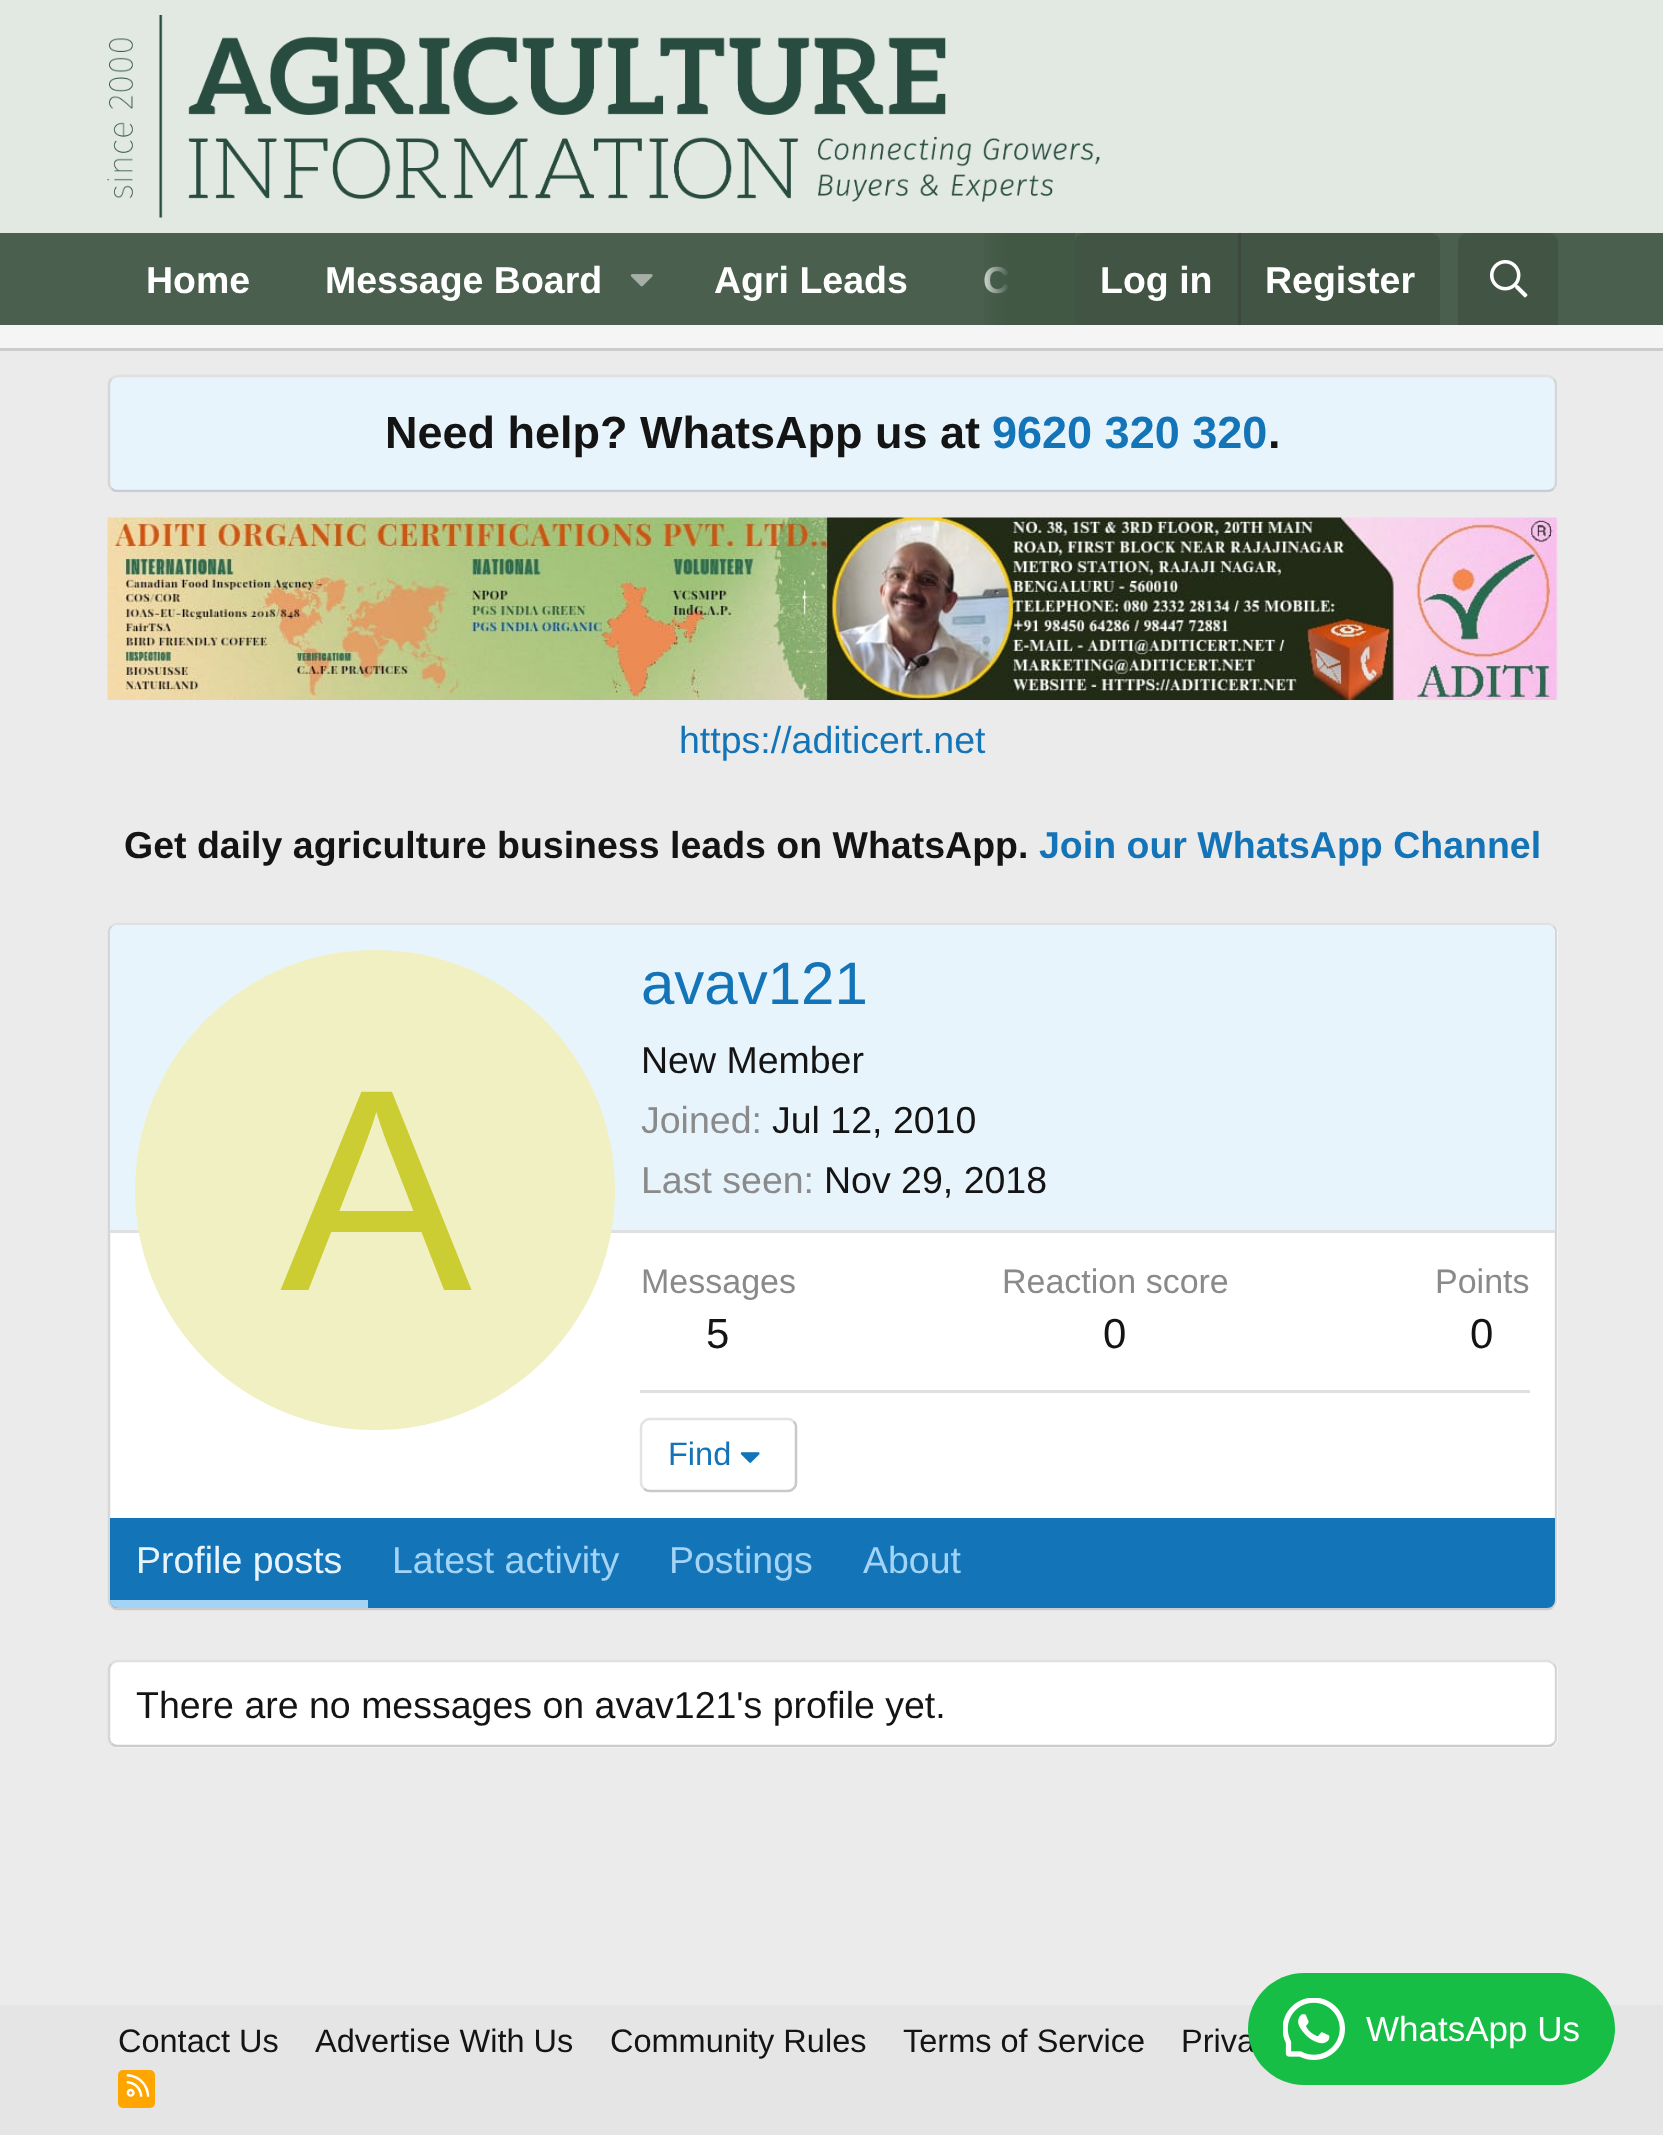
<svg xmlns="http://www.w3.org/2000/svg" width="1663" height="2135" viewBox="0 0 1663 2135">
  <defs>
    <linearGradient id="g1" gradientUnits="userSpaceOnUse" x1="975" y1="279" x2="1075" y2="279"><stop offset="0" stop-color="#415845" stop-opacity="0"/><stop offset="0.33" stop-color="#415845" stop-opacity="0.95"/></linearGradient>
  </defs>
  <rect width="100%" height="100%" fill="#ebebeb"/>
  <rect x="0" y="0" width="1663" height="233" fill="#e2e9e3"/>
  <image x="107" y="15" width="993" height="203" href="img1.png"/>
  <rect x="0" y="233" width="1663" height="92" fill="#4a5f4d"/>
  <text x="146" y="293" font-family="Liberation Sans" font-size="37.5" font-weight="bold" fill="#ffffff">Home</text>
  <text x="325" y="293" font-family="Liberation Sans" font-size="37.5" font-weight="bold" fill="#ffffff">Message Board</text>
  <image x="630" y="274" width="23" height="13" href="img2.png"/>
  <text x="714" y="293" font-family="Liberation Sans" font-size="37.5" font-weight="bold" fill="#ffffff">Agri Leads</text>
  <text x="983" y="293" font-family="Liberation Sans" font-size="37.5" font-weight="bold" fill="#ffffff">C</text>
  <rect x="984" y="233" width="91" height="92" fill="url(#g1)"/>
  <path d="M1085 233H1430C1435.5 233 1440 237.5 1440 243V325H1075V243C1075 237.5 1079.5 233 1085 233Z" fill="#425444"/>
  <text x="1100" y="293" font-family="Liberation Sans" font-size="37.5" font-weight="bold" fill="#ffffff">Log in</text>
  <rect x="1238" y="233" width="3" height="92" fill="#3b4a3d"/>
  <text x="1265" y="293" font-family="Liberation Sans" font-size="37.5" font-weight="bold" fill="#ffffff">Register</text>
  <path d="M1468 233H1548C1553.5 233 1558 237.5 1558 243V325H1458V243C1458 237.5 1462.5 233 1468 233Z" fill="#425444"/>
  <image x="1490" y="260" width="38" height="38" href="img3.png"/>
  <rect x="0" y="325" width="1663" height="23" fill="#f5f5f5"/>
  <rect x="0" y="348" width="1663" height="3" fill="#cccccc"/>
  <rect x="108" y="375" width="1450" height="118" rx="10" fill="#e8f4fc"/>
  <path d="M111.5 379C113 377 115 376 117.5 376H1547.5C1550 376 1552 377 1553.5 379" fill="none" stroke="#e0e0e0" stroke-width="2.5"/>
  <path d="M1553.5 379C1555.5 380.5 1556 382.5 1556 385V482.5C1556 485 1555.5 487 1553.5 488.5" fill="none" stroke="#d6d6d6" stroke-width="2.5"/>
  <path d="M1553.5 488.5C1552 490.5 1550 491 1547.5 491H117.5C115 491 113 490.5 111.5 488.5" fill="none" stroke="#cccccc" stroke-width="2.5"/>
  <path d="M111.5 488.5C109.5 487 109 485 109 482.5V385C109 382.5 109.5 380.5 111.5 379" fill="none" stroke="#d6d6d6" stroke-width="2.5"/>
  <text x="385" y="448" font-family="Liberation Sans" font-size="45" font-weight="bold" fill="#141414">Need help? WhatsApp us at</text>
  <text x="992" y="448" font-family="Liberation Sans" font-size="45" font-weight="bold" fill="#1474b8">9620 320 320</text>
  <text x="1268" y="448" font-family="Liberation Sans" font-size="45" font-weight="bold" fill="#141414">.</text>
  <image x="107" y="517" width="1451" height="183" href="img4.png"/>
  <text x="679" y="753" font-family="Liberation Sans" font-size="37.5" fill="#1474b8">https://aditicert.net</text>
  <text x="124" y="858" font-family="Liberation Sans" font-size="37.5" font-weight="bold" fill="#141414">Get daily agriculture business leads on WhatsApp.</text>
  <text x="1039" y="858" font-family="Liberation Sans" font-size="37.5" font-weight="bold" fill="#1474b8">Join our WhatsApp Channel</text>
  <rect x="108" y="923" width="1450" height="687" rx="10" fill="#ffffff"/>
  <path d="M111.5 926.5C113 924.5 115 924 117.5 924H1547.5C1550 924 1552 924.5 1553.5 926.5" fill="none" stroke="#e0e0e0" stroke-width="2.5"/>
  <path d="M1553.5 926.5C1555.5 928 1556 930 1556 932.5V1600C1556 1602.5 1555.5 1604.5 1553.5 1606" fill="none" stroke="#d6d6d6" stroke-width="2.5"/>
  <path d="M1553.5 1606C1552 1608 1550 1609 1547.5 1609H117.5C115 1609 113 1608 111.5 1606" fill="none" stroke="#cccccc" stroke-width="2.5"/>
  <path d="M111.5 1606C109.5 1604.5 109 1602.5 109 1600V932.5C109 930 109.5 928 111.5 926.5" fill="none" stroke="#d6d6d6" stroke-width="2.5"/>
  <path d="M118 925H1547C1551.5 925 1555 928.5 1555 933V1233H110V933C110 928.5 113.5 925 118 925Z" fill="#e8f4fc"/>
  <rect x="110" y="1230" width="1445" height="3" fill="#e0e0e0"/>
  <circle cx="375" cy="1190" r="240" fill="#f0f0c2"/>
  <text x="280" y="1290" font-family="Liberation Sans" font-size="288" fill="#cccc33">A</text>
  <text x="641" y="1004" font-family="Liberation Sans" font-size="60" fill="#1474b8">avav121</text>
  <text x="641" y="1073" font-family="Liberation Sans" font-size="37.5" fill="#141414">New Member</text>
  <text x="641" y="1133" font-family="Liberation Sans" font-size="37.5" fill="#8a8a8a">Joined:</text>
  <text x="772" y="1133" font-family="Liberation Sans" font-size="37.5" fill="#141414">Jul 12, 2010</text>
  <text x="641" y="1193" font-family="Liberation Sans" font-size="37.5" fill="#8a8a8a">Last seen:</text>
  <text x="824" y="1193" font-family="Liberation Sans" font-size="37.5" fill="#141414">Nov 29, 2018</text>
  <text x="641" y="1293" font-family="Liberation Sans" font-size="34" fill="#8a8a8a">Messages</text>
  <text x="706" y="1348" font-family="Liberation Sans" font-size="42" fill="#141414">5</text>
  <text x="1002" y="1293" font-family="Liberation Sans" font-size="34" fill="#8a8a8a">Reaction score</text>
  <text x="1103" y="1348" font-family="Liberation Sans" font-size="42" fill="#141414">0</text>
  <text x="1435" y="1293" font-family="Liberation Sans" font-size="34" fill="#8a8a8a">Points</text>
  <text x="1470" y="1348" font-family="Liberation Sans" font-size="42" fill="#141414">0</text>
  <rect x="640" y="1390" width="890" height="3" fill="#e0e0e0"/>
  <path d="M793.5 1421.5C795.5 1423 796 1425 796 1427.5V1482.5C796 1485 795.5 1487 793.5 1488.5C792 1490.5 790 1491 787.5 1491H650C647.5 1491 645.5 1490.5 644 1488.5" fill="none" stroke="#c9c9c9" stroke-width="2.5"/>
  <path d="M644 1488.5C642 1487 641 1485 641 1482.5V1427.5C641 1425 642 1423 644 1421.5C645.5 1419.5 647.5 1419 650 1419H787.5C790 1419 792 1419.5 793.5 1421.5" fill="none" stroke="#e3e3e3" stroke-width="2.5"/>
  <text x="668" y="1465" font-family="Liberation Sans" font-size="32.5" fill="#1474b8">Find</text>
  <image x="740" y="1452" width="20" height="11" href="img5.png"/>
  <path d="M110 1518H1555V1600C1555 1604.5 1551.5 1608 1547 1608H118C113.5 1608 110 1604.5 110 1600Z" fill="#1474b8"/>
  <path d="M110 1600H368V1608H118C113.5 1608 110 1604.5 110 1600Z" fill="#a3d4f5"/>
  <text x="136" y="1573" font-family="Liberation Sans" font-size="37.5" fill="#e8f4fc">Profile posts</text>
  <text x="392" y="1573" font-family="Liberation Sans" font-size="37.5" fill="#a3d4f5">Latest activity</text>
  <text x="669" y="1573" font-family="Liberation Sans" font-size="37.5" fill="#a3d4f5">Postings</text>
  <text x="863" y="1573" font-family="Liberation Sans" font-size="37.5" fill="#a3d4f5">About</text>
  <rect x="108" y="1660" width="1450" height="88" rx="10" fill="#ffffff"/>
  <path d="M111.5 1664C113 1662 115 1661 117.5 1661H1547.5C1550 1661 1552 1662 1553.5 1664" fill="none" stroke="#e0e0e0" stroke-width="2.5"/>
  <path d="M1553.5 1664C1555.5 1665.5 1556 1667.5 1556 1670V1737.5C1556 1740 1555.5 1742 1553.5 1743.5" fill="none" stroke="#d6d6d6" stroke-width="2.5"/>
  <path d="M1553.5 1743.5C1552 1745.5 1550 1746 1547.5 1746H117.5C115 1746 113 1745.5 111.5 1743.5" fill="none" stroke="#cccccc" stroke-width="2.5"/>
  <path d="M111.5 1743.5C109.5 1742 109 1740 109 1737.5V1670C109 1667.5 109.5 1665.5 111.5 1664" fill="none" stroke="#d6d6d6" stroke-width="2.5"/>
  <text x="136" y="1718" font-family="Liberation Sans" font-size="37.5" fill="#141414">There are no messages on avav121's profile yet.</text>
  <rect x="0" y="2005" width="1663" height="130" fill="#e5e5e5"/>
  <text x="118" y="2052" font-family="Liberation Sans" font-size="32.5" fill="#141414">Contact Us</text>
  <text x="315" y="2052" font-family="Liberation Sans" font-size="32.5" fill="#141414">Advertise With Us</text>
  <text x="610" y="2052" font-family="Liberation Sans" font-size="32.5" fill="#141414">Community Rules</text>
  <text x="903" y="2052" font-family="Liberation Sans" font-size="32.5" fill="#141414">Terms of Service</text>
  <text x="1181" y="2052" font-family="Liberation Sans" font-size="32.5" fill="#141414">Priva</text>
  <rect x="118" y="2070" width="37" height="38" rx="5" fill="#ffa500"/>
  <image x="126" y="2074" width="24" height="23" href="img6.png"/>
  <rect x="1248" y="1973" width="367" height="112" rx="56" fill="#16be45"/>
  <image x="1283" y="1998" width="62" height="62" href="img7.png"/>
  <text x="1366" y="2041" font-family="Liberation Sans" font-size="35" fill="#ffffff">WhatsApp Us</text>
</svg>
